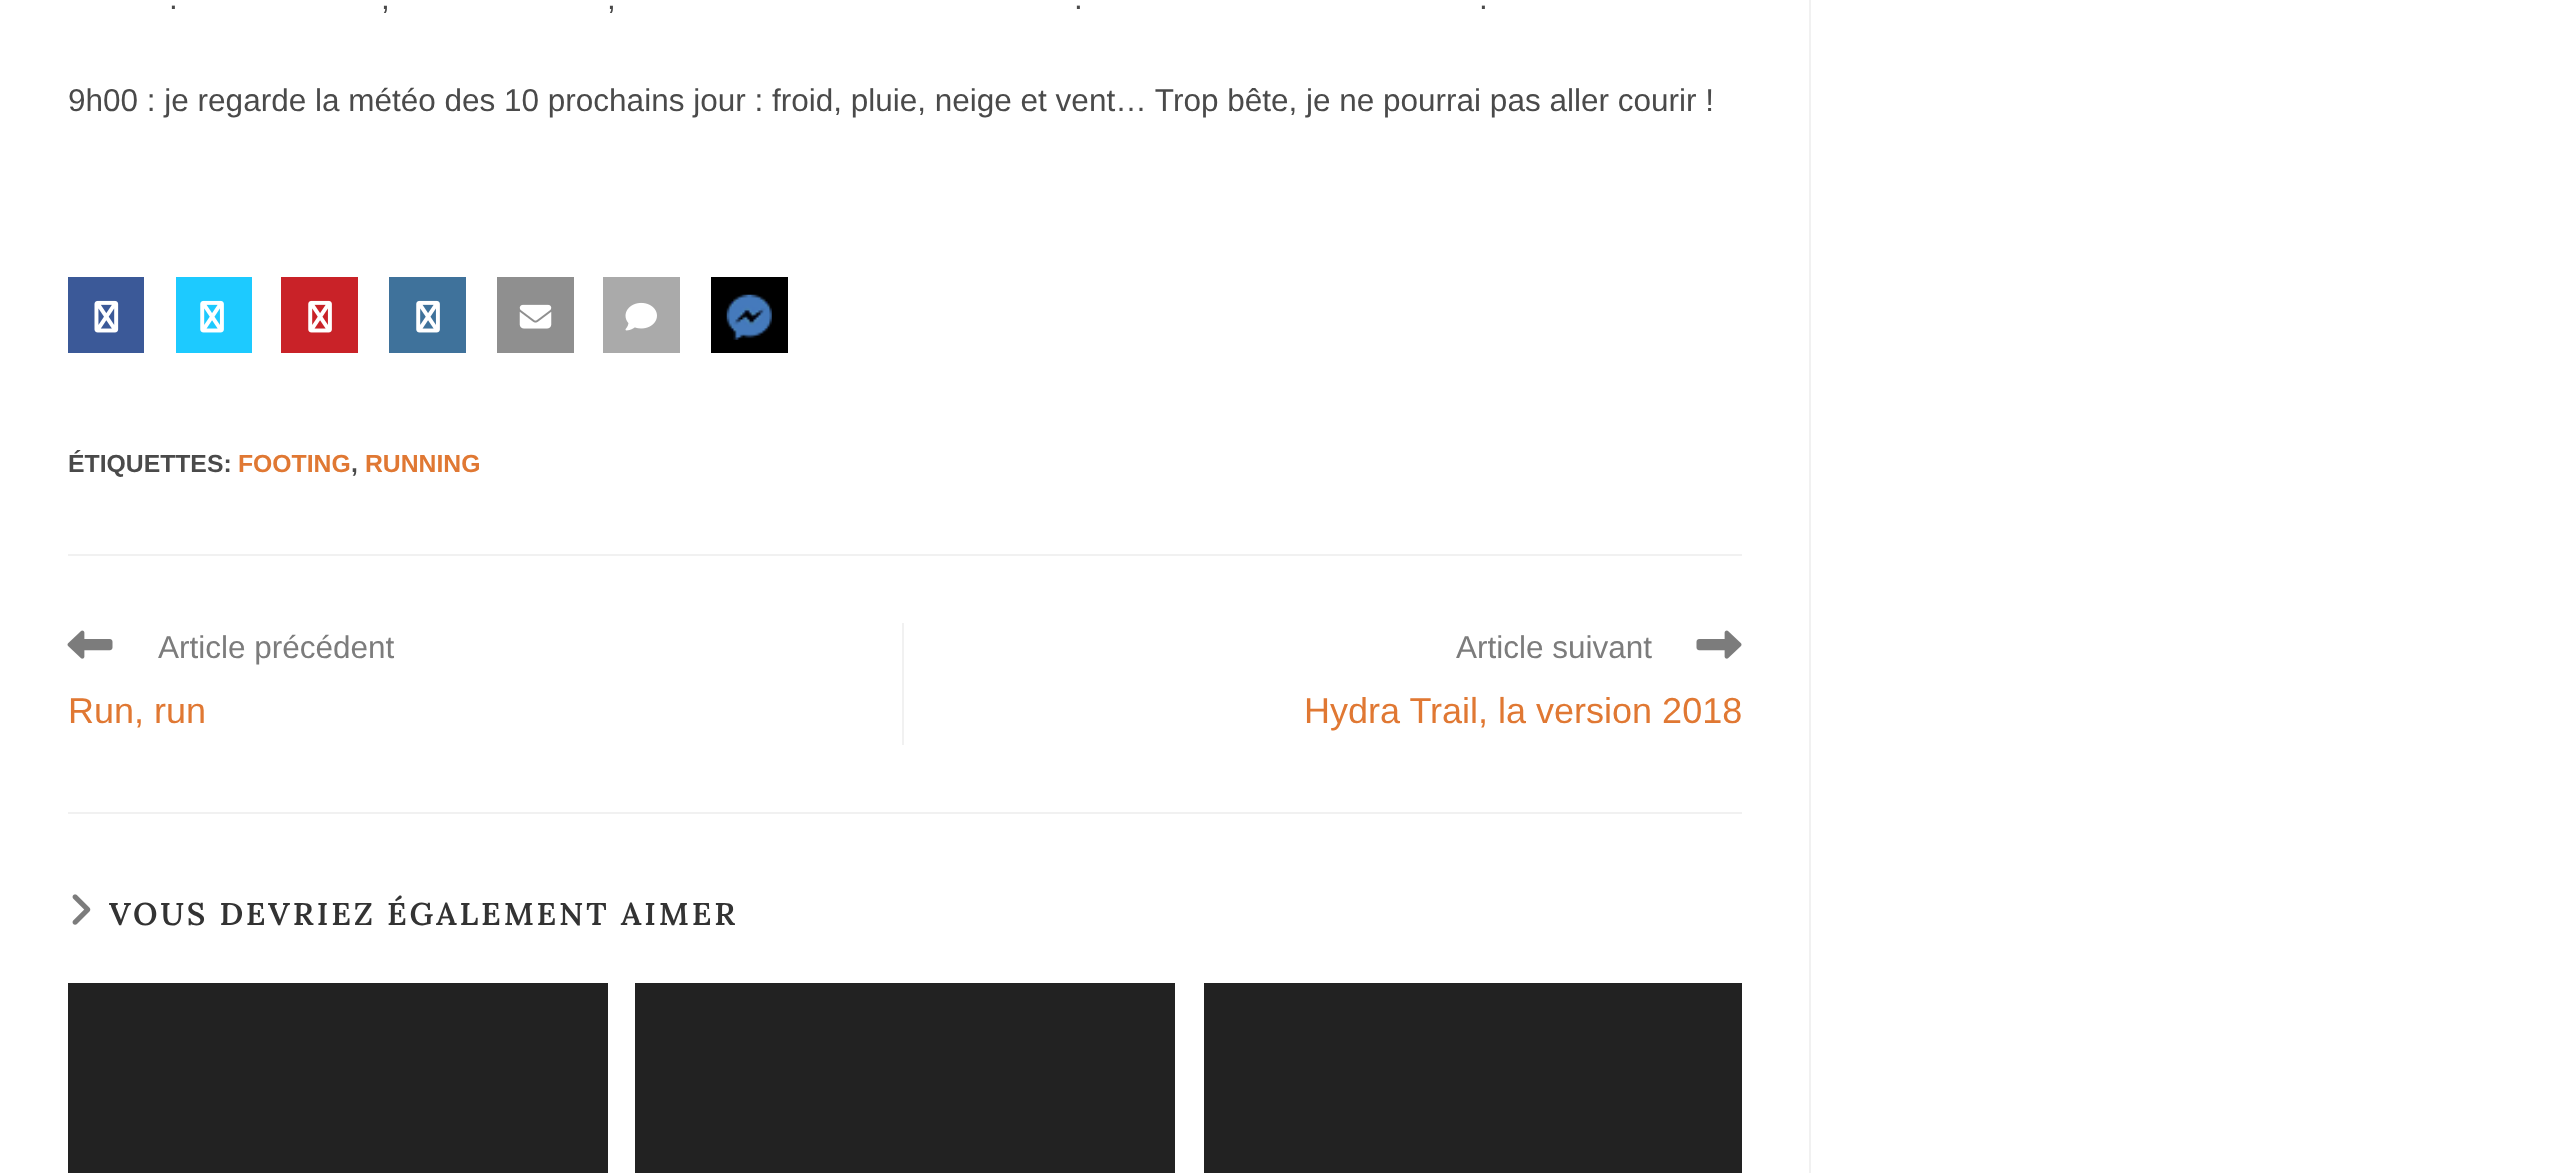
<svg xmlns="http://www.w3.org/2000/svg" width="2557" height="1173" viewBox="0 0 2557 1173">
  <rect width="100%" height="100%" fill="#ffffff"/>
  <rect x="1809" y="0" width="2" height="1173" fill="#f1f1f1"/>
  <text x="169" y="9" font-family="Liberation Sans" font-size="31.5" fill="#4a4a4a">.</text>
  <text x="381" y="9" font-family="Liberation Sans" font-size="31.5" fill="#4a4a4a">,</text>
  <text x="607" y="9" font-family="Liberation Sans" font-size="31.5" fill="#4a4a4a">,</text>
  <text x="1074" y="9" font-family="Liberation Sans" font-size="31.5" fill="#4a4a4a">.</text>
  <text x="1479" y="9" font-family="Liberation Sans" font-size="31.5" fill="#4a4a4a">.</text>
  <text x="68" y="111" font-family="Liberation Sans" font-size="31.5" fill="#4a4a4a">9h00 : je regarde la météo des 10 prochains jour : froid, pluie, neige et vent… Trop bête, je ne pourrai pas aller courir !</text>
  <rect x="68" y="277" width="76" height="76" fill="#3b5998"/>
  <image x="94" y="300" width="25" height="33" href="img1.png"/>
  <rect x="176" y="277" width="76" height="76" fill="#1dcaff"/>
  <image x="200" y="300" width="24" height="33" href="img2.png"/>
  <rect x="281" y="277" width="77" height="76" fill="#c92228"/>
  <image x="308" y="300" width="24" height="33" href="img3.png"/>
  <rect x="389" y="277" width="77" height="76" fill="#3f729b"/>
  <image x="416" y="300" width="24" height="33" href="img4.png"/>
  <rect x="497" y="277" width="77" height="76" fill="#8f8f8f"/>
  <image x="519" y="304" width="33" height="25" href="img5.png"/>
  <rect x="603" y="277" width="77" height="76" fill="#aaaaaa"/>
  <image x="625" y="302" width="32" height="29" href="img6.png"/>
  <rect x="711" y="277" width="77" height="76" fill="#000000"/>
  <image x="726" y="294" width="46" height="46" href="img7.png"/>
  <text x="68" y="472" font-family="Liberation Sans" font-size="24.75" font-weight="bold" fill="#4a4a4a">ÉTIQUETTES:</text>
  <text x="238" y="472" font-family="Liberation Sans" font-size="24.75" font-weight="bold" fill="#e07833">FOOTING</text>
  <text x="351" y="472" font-family="Liberation Sans" font-size="24.75" font-weight="bold" fill="#4a4a4a">,</text>
  <text x="365" y="472" font-family="Liberation Sans" font-size="24.75" font-weight="bold" fill="#e07833">RUNNING</text>
  <rect x="68" y="554" width="1674" height="2" fill="#f1f1f1"/>
  <rect x="902" y="623" width="2" height="122" fill="#f1f1f1"/>
  <image x="67" y="630" width="46" height="29" href="img8.png"/>
  <text x="158" y="658" font-family="Liberation Sans" font-size="31.5" fill="#7c7c7c">Article précédent</text>
  <text x="68" y="723" font-family="Liberation Sans" font-size="36" fill="#e07833">Run, run</text>
  <text x="1456" y="658" font-family="Liberation Sans" font-size="31.5" fill="#7c7c7c">Article suivant</text>
  <image x="1696" y="630" width="46" height="29" href="img9.png"/>
  <text x="1304" y="723" font-family="Liberation Sans" font-size="36" fill="#e07833">Hydra Trail, la version 2018</text>
  <rect x="68" y="812" width="1674" height="2" fill="#f1f1f1"/>
  <image x="72" y="894" width="19" height="31" href="img10.png"/>
  <text x="109" y="925" font-family="Lora" font-size="31.5" font-weight="600" letter-spacing="2.9" fill="#333333">VOUS DEVRIEZ ÉGALEMENT AIMER</text>
  <rect x="68" y="983" width="540" height="190" fill="#222222"/>
  <rect x="635" y="983" width="540" height="190" fill="#222222"/>
  <rect x="1204" y="983" width="538" height="190" fill="#222222"/>
</svg>
